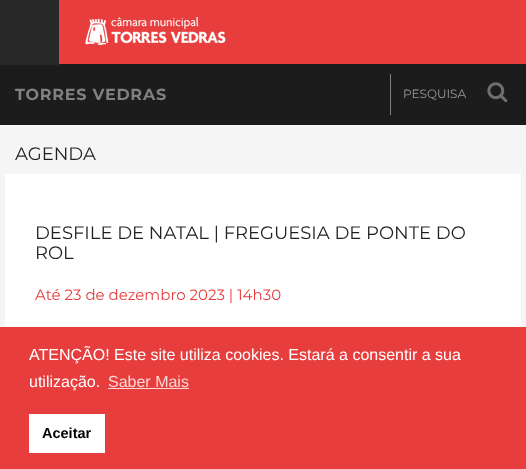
<svg xmlns="http://www.w3.org/2000/svg" width="526" height="469" viewBox="0 0 526 469">
  <rect width="100%" height="100%" fill="#f5f5f5"/>
  <rect x="59" y="0" width="467" height="64" fill="#e73d3d"/>
  <rect x="0" y="64" width="526" height="61" fill="#1c1c1c"/>
  <rect x="0" y="0" width="59" height="65" fill="#282828"/>
  <image x="85" y="17" width="141" height="28" href="img1.png"/>
  <text x="15" y="100" font-family="Montserrat" font-size="16" font-weight="bold" letter-spacing="0.75" fill="#808080">TORRES VEDRAS</text>
  <rect x="390" y="74" width="1" height="41" fill="#808080"/>
  <text x="403" y="98" font-family="Montserrat" font-size="12" fill="#999999">PESQUISA</text>
  <image x="487" y="82" width="21" height="21" href="img2.png"/>
  <text x="15" y="160" font-family="Montserrat" font-size="18" fill="#231f20">AGENDA</text>
  <rect x="5" y="174" width="516" height="153" fill="#ffffff"/>
  <text x="35" y="239" font-family="Montserrat" font-size="18" fill="#231f20">DESFILE DE NATAL | FREGUESIA DE PONTE DO</text>
  <text x="35" y="259" font-family="Montserrat" font-size="18" fill="#231f20">ROL</text>
  <text x="35" y="300" font-family="Montserrat" font-size="15" fill="#e73d3d">Até 23 de dezembro 2023 | 14h30</text>
  <rect x="0" y="327" width="526" height="142" fill="#e73d3d"/>
  <text x="29" y="360" font-family="Liberation Sans" font-size="16" fill="#ffffff">ATENÇÃO! Este site utiliza cookies. Estará a consentir a sua</text>
  <text x="29" y="387" font-family="Liberation Sans" font-size="16" fill="#ffffff">utilização.</text>
  <text x="108" y="387" font-family="Liberation Sans" font-size="16" fill="#fad8d8">Saber Mais</text>
  <rect x="108" y="388" width="81" height="1" fill="#fad8d8"/>
  <rect x="29" y="414" width="76" height="39" fill="#ffffff"/>
  <text x="42" y="438" font-family="Liberation Sans" font-size="14.5" font-weight="bold" fill="#000000">Aceitar</text>
</svg>
